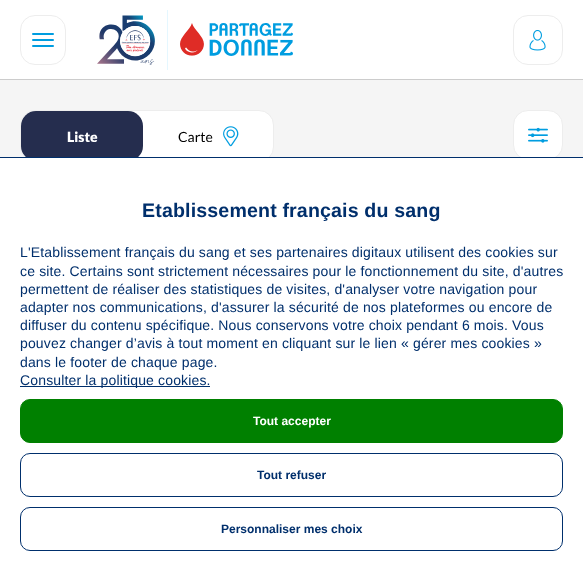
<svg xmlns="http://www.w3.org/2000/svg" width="583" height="581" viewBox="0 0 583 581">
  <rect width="100%" height="100%" fill="#ffffff"/>
  <rect x="0" y="79" width="583" height="1" fill="#cccccc"/>
  <rect x="20.5" y="15.5" width="45" height="49" rx="14.5" fill="none" stroke="#ededed"/>
  <rect x="32" y="33" width="22" height="2" rx="1" fill="#009de0"/>
  <rect x="32" y="39" width="22" height="2" rx="1" fill="#009de0"/>
  <rect x="32" y="45" width="22" height="2" rx="1" fill="#009de0"/>
  <image x="97" y="15" width="58" height="50" href="img1.png"/>
  <rect x="167" y="10" width="1" height="60" fill="#e5f7ff"/>
  <image x="180" y="23" width="113" height="33" href="img2.png"/>
  <rect x="513.5" y="15.5" width="49" height="49" rx="14.5" fill="none" stroke="#ededed"/>
  <image x="529" y="30" width="17" height="21" href="img3.png"/>
  <rect x="0" y="80" width="583" height="77" fill="#f5f5f5"/>
  <rect x="20.5" y="110.5" width="253" height="51" rx="14.5" fill="#ffffff" stroke="#ededed"/>
  <rect x="21" y="111" width="122" height="50" rx="15" fill="#252d4e"/>
  <text x="67" y="142" font-family="Lato" font-size="14" font-weight="900" fill="#ffffff">Liste</text>
  <text x="178" y="142" font-family="Lato" font-size="14" fill="#000000">Carte</text>
  <image x="223" y="126" width="16" height="21" href="img4.png"/>
  <rect x="513.5" y="110.5" width="49" height="49" rx="14.5" fill="#ffffff" stroke="#ededed"/>
  <image x="528" y="127" width="20" height="16" href="img5.png"/>
  <rect x="25" y="158" width="530" height="4" fill="#ffffff"/>
  <rect x="0" y="157" width="583" height="1" fill="#002f6c"/>
  <text x="142" y="217" font-family="Liberation Sans" font-size="19.6" font-weight="bold" letter-spacing="0.15" fill="#002f6c">Etablissement français du sang</text>
  <text x="20" y="257" font-family="Liberation Sans" font-size="14" letter-spacing="0.15" fill="#002f6c">L'Etablissement français du sang et ses partenaires digitaux utilisent des cookies sur</text>
  <text x="20" y="276" font-family="Liberation Sans" font-size="14" letter-spacing="0.15" fill="#002f6c">ce site. Certains sont strictement nécessaires pour le fonctionnement du site, d'autres</text>
  <text x="20" y="294" font-family="Liberation Sans" font-size="14" letter-spacing="0.15" fill="#002f6c">permettent de réaliser des statistiques de visites, d'analyser votre navigation pour</text>
  <text x="20" y="312" font-family="Liberation Sans" font-size="14" letter-spacing="0.15" fill="#002f6c">adapter nos communications, d'assurer la sécurité de nos plateformes ou encore de</text>
  <text x="20" y="330" font-family="Liberation Sans" font-size="14" letter-spacing="0.15" fill="#002f6c">diffuser du contenu spécifique. Nous conservons votre choix pendant 6 mois. Vous</text>
  <text x="20" y="348" font-family="Liberation Sans" font-size="14" letter-spacing="0.15" fill="#002f6c">pouvez changer d’avis à tout moment en cliquant sur le lien « gérer mes cookies »</text>
  <text x="20" y="367" font-family="Liberation Sans" font-size="14" letter-spacing="0.15" fill="#002f6c">dans le footer de chaque page.</text>
  <rect x="20" y="386" width="190" height="1" fill="#002f6c"/>
  <text x="20" y="385" font-family="Liberation Sans" font-size="14" letter-spacing="0.15" fill="#002f6c">Consulter la politique cookies.</text>
  <rect x="20.5" y="399.5" width="542" height="43" rx="9.5" fill="#008000" stroke="#008000"/>
  <text x="253" y="425" font-family="Liberation Sans" font-size="12" font-weight="bold" fill="#ffffff">Tout accepter</text>
  <rect x="20.5" y="453.5" width="542" height="43" rx="9.5" fill="none" stroke="#002f6c"/>
  <text x="257" y="479" font-family="Liberation Sans" font-size="12" font-weight="bold" fill="#002f6c">Tout refuser</text>
  <rect x="20.5" y="507.5" width="542" height="43" rx="9.5" fill="none" stroke="#002f6c"/>
  <text x="221" y="533" font-family="Liberation Sans" font-size="12" font-weight="bold" fill="#002f6c">Personnaliser mes choix</text>
</svg>
